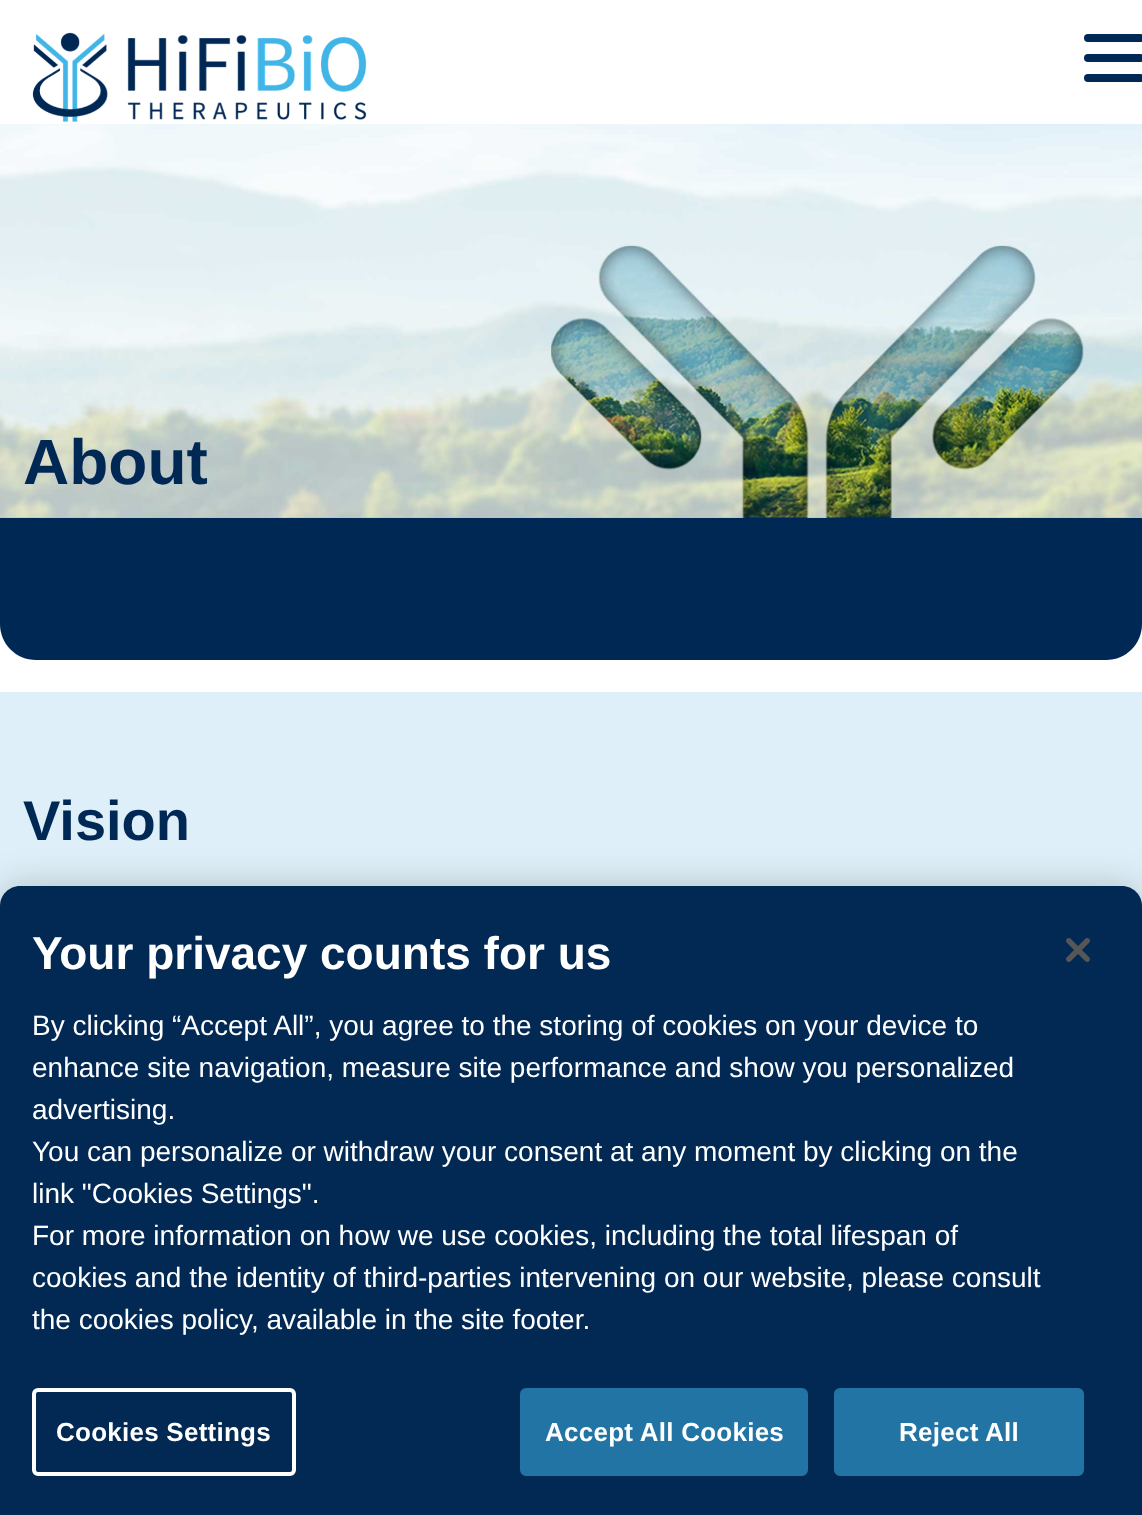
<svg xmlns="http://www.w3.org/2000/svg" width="1142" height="1515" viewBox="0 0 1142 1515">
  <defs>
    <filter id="blur1" x="-50%" y="-200%" width="200%" height="500%"><feGaussianBlur stdDeviation="18"/></filter>
  </defs>
  <rect width="100%" height="100%" fill="#ffffff"/>
  <image x="32" y="32" width="335" height="90" href="img1.png"/>
  <rect x="1084" y="34" width="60" height="8" rx="4" fill="#002855"/>
  <rect x="1084" y="54" width="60" height="8" rx="4" fill="#002855"/>
  <rect x="1084" y="74" width="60" height="8" rx="4" fill="#002855"/>
  <image x="0" y="124" width="1142" height="394" href="img2.png"/>
  <text x="23" y="484" font-family="Liberation Sans" font-size="64" font-weight="bold" fill="#002855">About</text>
  <path d="M0 518H1142V624C1142 644 1126 660 1106 660H36C16 660 0 644 0 624Z" fill="#002855"/>
  <rect x="0" y="692" width="1142" height="214" fill="#deeff9"/>
  <text x="23" y="840" font-family="Liberation Sans" font-size="56" font-weight="bold" fill="#002855">Vision</text>
  <rect x="0" y="886" width="1142" height="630" rx="20" fill="#000000" fill-opacity="0.2" filter="url(#blur1)"/>
  <path d="M20 886H1122C1133 886 1142 895 1142 906V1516H0V906C0 895 9 886 20 886Z" fill="#012954"/>
  <text x="32" y="969" font-family="Liberation Sans" font-size="46" font-weight="bold" fill="#ffffff">Your privacy counts for us</text>
  <text x="32" y="1035" font-family="Liberation Sans" font-size="28" fill="#ffffff">By clicking “Accept All”, you agree to the storing of cookies on your device to</text>
  <text x="32" y="1077" font-family="Liberation Sans" font-size="28" fill="#ffffff">enhance site navigation, measure site performance and show you personalized</text>
  <text x="32" y="1119" font-family="Liberation Sans" font-size="28" fill="#ffffff">advertising.</text>
  <text x="32" y="1161" font-family="Liberation Sans" font-size="28" fill="#ffffff">You can personalize or withdraw your consent at any moment by clicking on the</text>
  <text x="32" y="1203" font-family="Liberation Sans" font-size="28" fill="#ffffff">link "Cookies Settings".</text>
  <text x="32" y="1245" font-family="Liberation Sans" font-size="28" fill="#ffffff">For more information on how we use cookies, including the total lifespan of</text>
  <text x="32" y="1287" font-family="Liberation Sans" font-size="28" fill="#ffffff">cookies and the identity of third-parties intervening on our website, please consult</text>
  <text x="32" y="1329" font-family="Liberation Sans" font-size="28" fill="#ffffff">the cookies policy, available in the site footer.</text>
  <rect x="34" y="1390" width="260" height="84" rx="4" fill="none" stroke="#ffffff" stroke-width="4"/>
  <text x="56" y="1441" font-family="Liberation Sans" font-size="26" font-weight="bold" letter-spacing="0.25" fill="#ffffff">Cookies Settings</text>
  <rect x="522" y="1390" width="284" height="84" rx="4" fill="#2274a5" stroke="#2274a5" stroke-width="4"/>
  <text x="545" y="1441" font-family="Liberation Sans" font-size="26" font-weight="bold" letter-spacing="0.25" fill="#ffffff">Accept All Cookies</text>
  <rect x="836" y="1390" width="246" height="84" rx="4" fill="#2274a5" stroke="#2274a5" stroke-width="4"/>
  <text x="899" y="1441" font-family="Liberation Sans" font-size="26" font-weight="bold" letter-spacing="0.25" fill="#ffffff">Reject All</text>
  <image x="1066" y="938" width="24" height="24" href="img3.png"/>
</svg>
